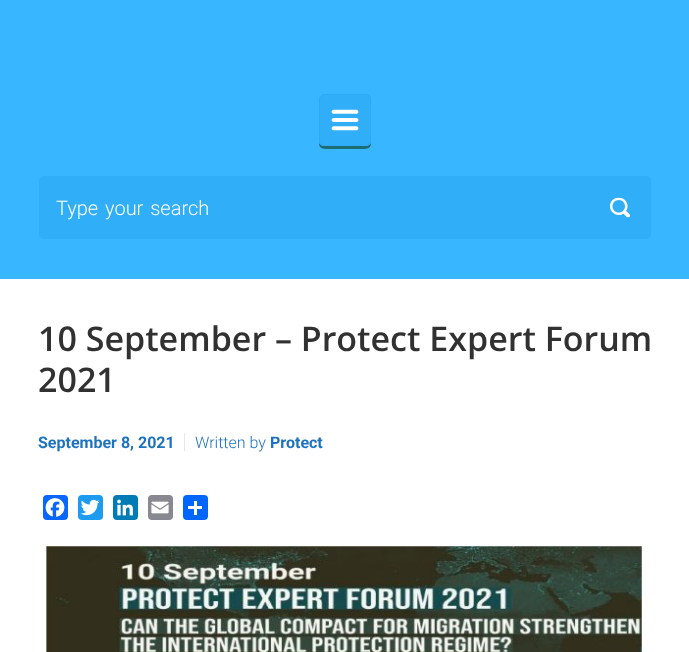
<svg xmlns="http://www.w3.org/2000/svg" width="689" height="652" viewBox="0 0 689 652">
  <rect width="100%" height="100%" fill="#38b6ff"/>
  <path d="M319 143C319 150 325 149 331 149H359C365 149 371 150 371 143C370 145 368 146 366 146H324C322 146 320 145 319 143Z" fill="#1d6e72"/>
  <rect x="319.5" y="94.5" width="51" height="51" rx="4.5" fill="#30aef7" stroke="#2caaf3"/>
  <image x="331" y="109" width="28" height="22" href="img1.png"/>
  <rect x="39" y="176" width="612" height="63" rx="5" fill="#30aef7"/>
  <text x="56" y="215" word-spacing="2" font-family="Roboto" font-size="20" font-weight="300" fill="#ffffff">Type your search</text>
  <image x="610" y="197" width="20" height="21" href="img2.png"/>
  <rect x="0" y="279" width="689" height="373" fill="#ffffff"/>
  <text x="38" y="351" font-family="Open Sans" font-size="34" font-weight="600" fill="#313131">10 September – Protect Expert Forum</text>
  <text x="38" y="392" font-family="Open Sans" font-size="34" font-weight="600" fill="#313131">2021</text>
  <text x="38" y="448" font-family="Roboto" font-size="16" font-weight="bold" fill="#1e73be">September 8, 2021</text>
  <rect x="184" y="433" width="1" height="18" fill="#e6e6e6"/>
  <text x="195" y="448" font-family="Roboto" font-size="16" font-weight="300" fill="#1e73be">Written by</text>
  <text x="270" y="448" font-family="Roboto" font-size="16" font-weight="bold" fill="#1e73be">Protect</text>
  <rect x="43" y="495" width="25" height="25" rx="4" fill="#0866ff"/>
  <image x="45" y="498" width="20" height="19" href="img3.png"/>
  <rect x="78" y="495" width="25" height="25" rx="4" fill="#1d9bf0"/>
  <image x="80" y="499" width="20" height="17" href="img4.png"/>
  <rect x="113" y="495" width="25" height="25" rx="4" fill="#007bb5"/>
  <image x="117" y="499" width="16" height="17" href="img5.png"/>
  <rect x="148" y="495" width="25" height="25" rx="4" fill="#888990"/>
  <image x="151" y="501" width="18" height="13" href="img6.png"/>
  <rect x="183" y="495" width="25" height="25" rx="4" fill="#0166ff"/>
  <rect x="194" y="501" width="3" height="14" fill="#ffffff"/>
  <rect x="188" y="506" width="14" height="3" fill="#ffffff"/>
  <image x="45" y="546" width="600" height="106" href="img7.png"/>
</svg>
